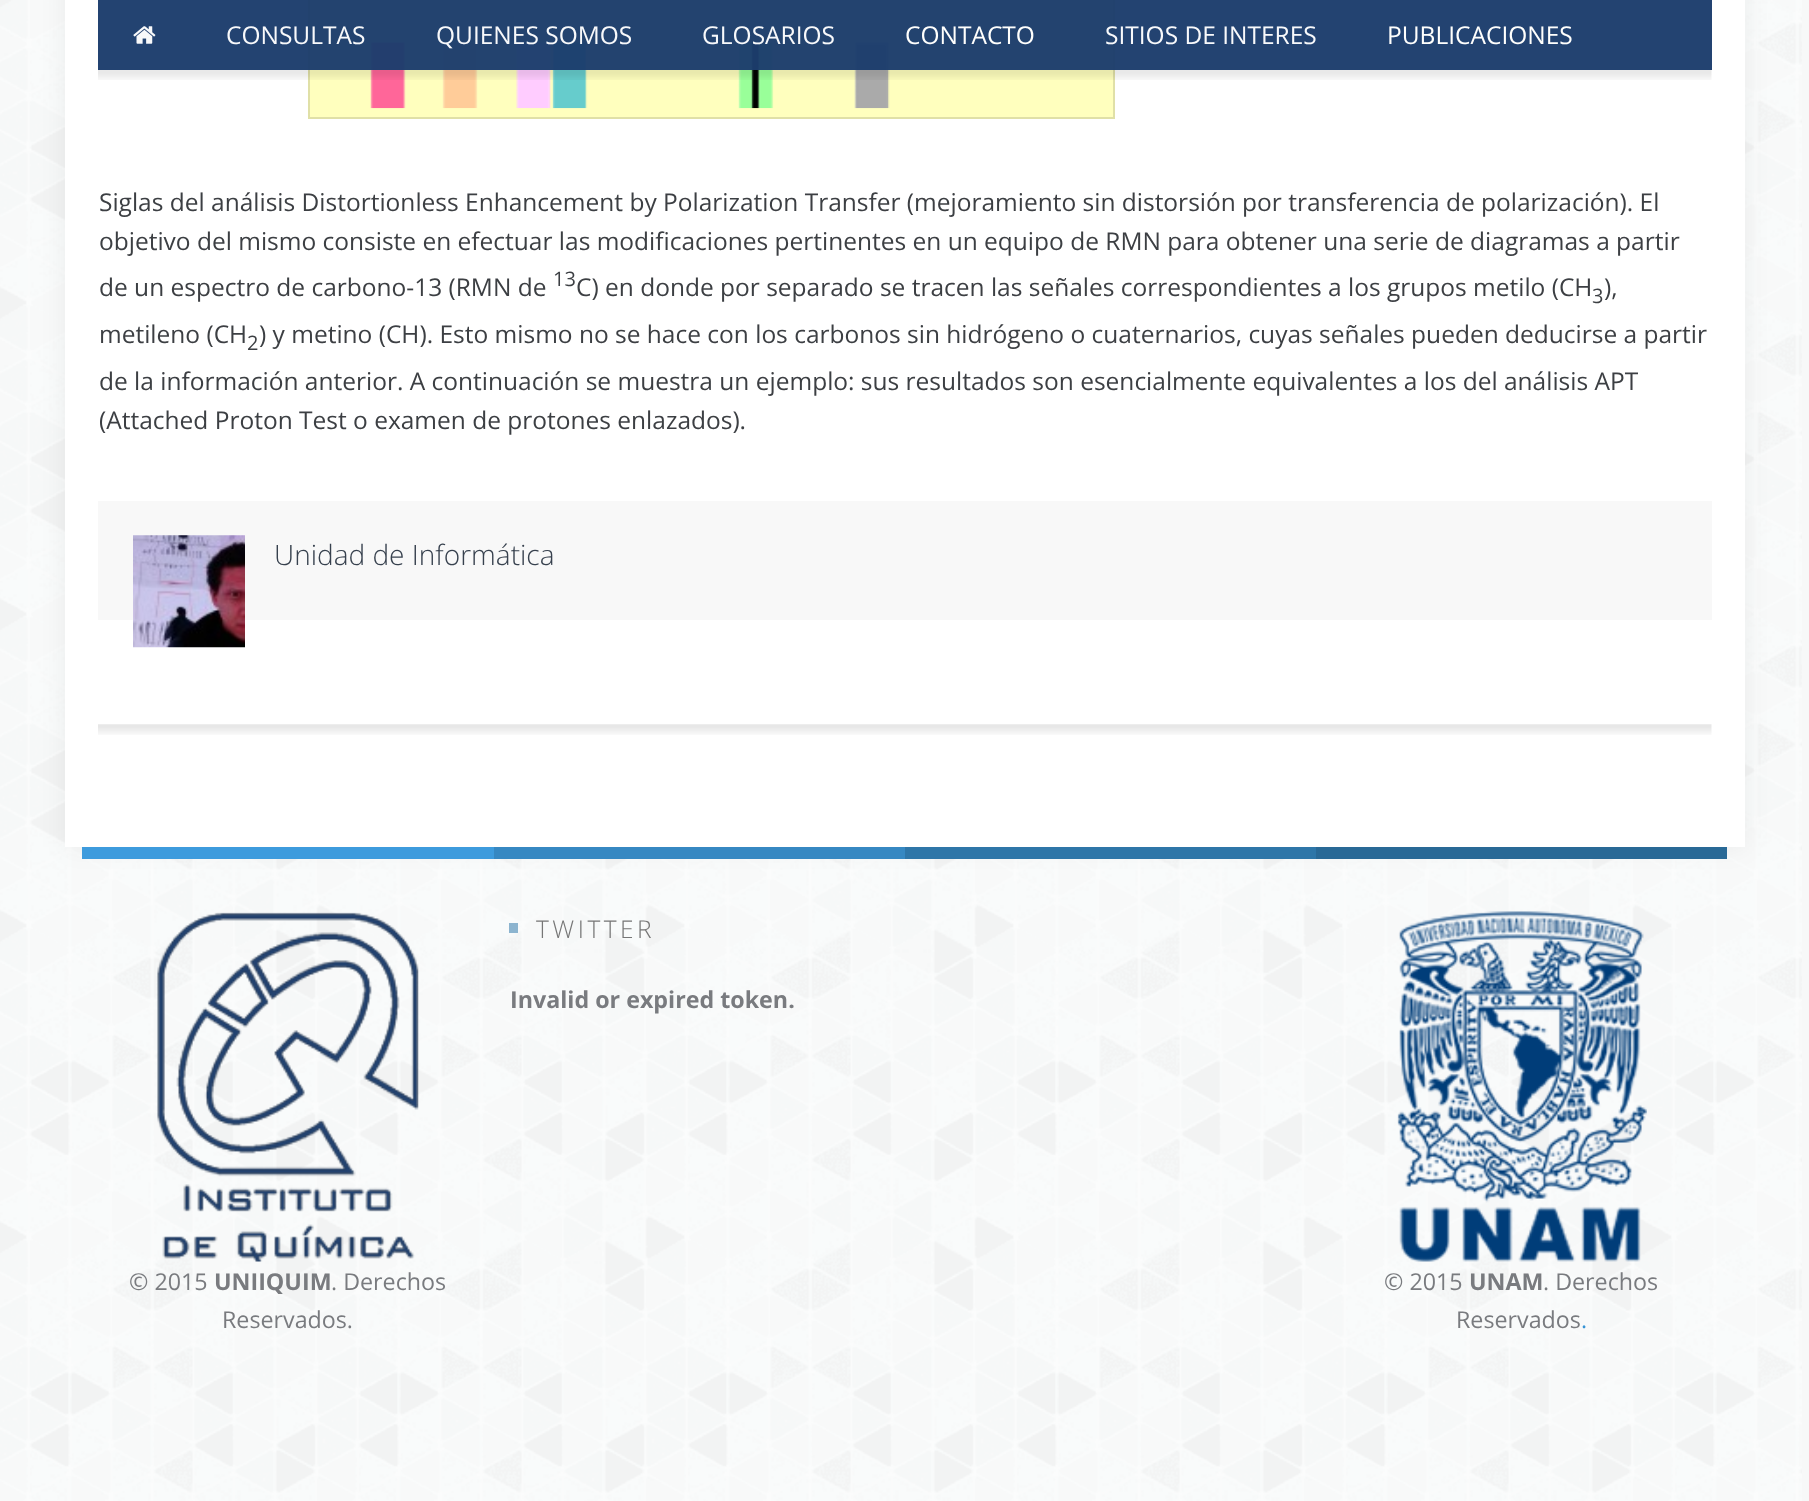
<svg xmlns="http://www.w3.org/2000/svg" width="1809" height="1501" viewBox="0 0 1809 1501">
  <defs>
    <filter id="blur1" x="-50%" y="-200%" width="200%" height="500%"><feGaussianBlur stdDeviation="13"/></filter>
  </defs>
  <rect width="100%" height="100%" fill="#f7f8f8"/>
  <image x="0" y="0" width="1802" height="1501" href="img1.png"/>
  <rect x="65" y="-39" width="1680" height="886" fill="#000000" fill-opacity="0.06" filter="url(#blur1)"/>
  <rect x="65" y="0" width="1680" height="847" fill="#ffffff"/>
  <rect x="309" y="-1" width="805" height="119" fill="#ffffbe" stroke="#e0e0a7" stroke-width="2"/>
  <image x="370" y="40" width="520" height="69" href="img4.png"/>
  <rect x="98" y="0" width="1614" height="70" fill="#1c3d6c" fill-opacity="0.97"/>
  <image x="133" y="26" width="23" height="18" href="img2.png"/>
  <text x="226" y="44" font-family="Open Sans" font-size="24.5" fill="#f8f9fb">CONSULTAS</text>
  <text x="436" y="44" font-family="Open Sans" font-size="24.5" fill="#f8f9fb">QUIENES SOMOS</text>
  <text x="702" y="44" font-family="Open Sans" font-size="24.5" fill="#f8f9fb">GLOSARIOS</text>
  <text x="905" y="44" font-family="Open Sans" font-size="24.5" fill="#fffffd">CONTACTO</text>
  <text x="1105" y="44" font-family="Open Sans" font-size="24.5" fill="#f8f9fb">SITIOS DE INTERES</text>
  <text x="1387" y="44" font-family="Open Sans" font-size="24.5" fill="#fffffd">PUBLICACIONES</text>
  <image x="98" y="70" width="1614" height="10" href="img3.png"/>
  <text x="99" y="211" font-family="Open Sans" font-size="24.5" fill="#3c3f43">Siglas del análisis Distortionless Enhancement by Polarization Transfer (mejoramiento sin distorsión por transferencia de polarización). El</text>
  <text x="99" y="250" font-family="Open Sans" font-size="24.5" fill="#3c3f43">objetivo del mismo consiste en efectuar las modificaciones pertinentes en un equipo de RMN para obtener una serie de diagramas a partir</text>
  <text x="99" y="296" font-family="Open Sans" font-size="24.5" fill="#3c3f43">de un espectro de carbono-13 (RMN de</text>
  <text x="553" y="286" font-family="Open Sans" font-size="20" fill="#3c3f43">13</text>
  <text x="576" y="296" font-family="Open Sans" font-size="24.5" fill="#3c3f43">C) en donde por separado se tracen las señales correspondientes a los grupos metilo (CH</text>
  <text x="1592" y="303" font-family="Open Sans" font-size="20" fill="#3c3f43">3</text>
  <text x="1604" y="296" font-family="Open Sans" font-size="24.5" fill="#3c3f43">),</text>
  <text x="99" y="343" font-family="Open Sans" font-size="24.5" fill="#3c3f43">metileno (CH</text>
  <text x="247" y="350" font-family="Open Sans" font-size="20" fill="#3c3f43">2</text>
  <text x="259" y="343" font-family="Open Sans" font-size="24.5" fill="#3c3f43">) y metino (CH). Esto mismo no se hace con los carbonos sin hidrógeno o cuaternarios, cuyas señales pueden deducirse a partir</text>
  <text x="99" y="390" font-family="Open Sans" font-size="24.5" fill="#3c3f43">de la información anterior. A continuación se muestra un ejemplo: sus resultados son esencialmente equivalentes a los del análisis APT</text>
  <text x="99" y="429" font-family="Open Sans" font-size="24.5" fill="#3c3f43">(Attached Proton Test o examen de protones enlazados).</text>
  <rect x="98" y="501" width="1614" height="119" fill="#f8f8f8"/>
  <image x="133" y="535" width="112" height="113" href="img5.png"/>
  <text x="274" y="565" font-family="Open Sans" font-size="28" font-weight="300" fill="#37414e">Unidad de Informática</text>
  <image x="98" y="724" width="1614" height="11" href="img6.png"/>
  <rect x="82" y="847" width="412" height="12" fill="#3d9bdd"/>
  <rect x="494" y="847" width="411" height="12" fill="#3688c2"/>
  <rect x="905" y="847" width="411" height="12" fill="#2e76a8"/>
  <rect x="1316" y="847" width="411" height="12" fill="#296996"/>
  <rect x="509" y="923" width="9" height="10" fill="#8cb4cf"/>
  <text x="536" y="938" font-family="Open Sans" font-size="24.5" font-weight="300" letter-spacing="3.5" fill="#767676">TWITTER</text>
  <text x="510" y="1008" font-family="Open Sans" font-size="23.25" font-weight="bold" fill="#797b7f">Invalid or expired token.</text>
  <image x="157" y="912" width="262" height="350" href="img7.png"/>
  <text x="129" y="1290" font-family="Open Sans" font-size="23.25" fill="#797b7f">© 2015</text>
  <text x="214" y="1290" font-family="Open Sans" font-size="23.25" font-weight="bold" fill="#797b7f">UNIIQUIM</text>
  <text x="331" y="1290" font-family="Open Sans" font-size="23.25" fill="#797b7f">. Derechos</text>
  <text x="222" y="1328" font-family="Open Sans" font-size="23.25" fill="#797b7f">Reservados.</text>
  <image x="1397" y="911" width="250" height="351" href="img8.png"/>
  <text x="1384" y="1290" font-family="Open Sans" font-size="23.25" fill="#797b7f">© 2015</text>
  <text x="1469" y="1290" font-family="Open Sans" font-size="23.25" font-weight="bold" fill="#797b7f">UNAM</text>
  <text x="1543" y="1290" font-family="Open Sans" font-size="23.25" fill="#797b7f">. Derechos</text>
  <text x="1456" y="1328" font-family="Open Sans" font-size="23.25" fill="#797b7f">Reservados</text>
  <text x="1581" y="1328" font-family="Open Sans" font-size="23.25" fill="#3693d5">.</text>
</svg>
